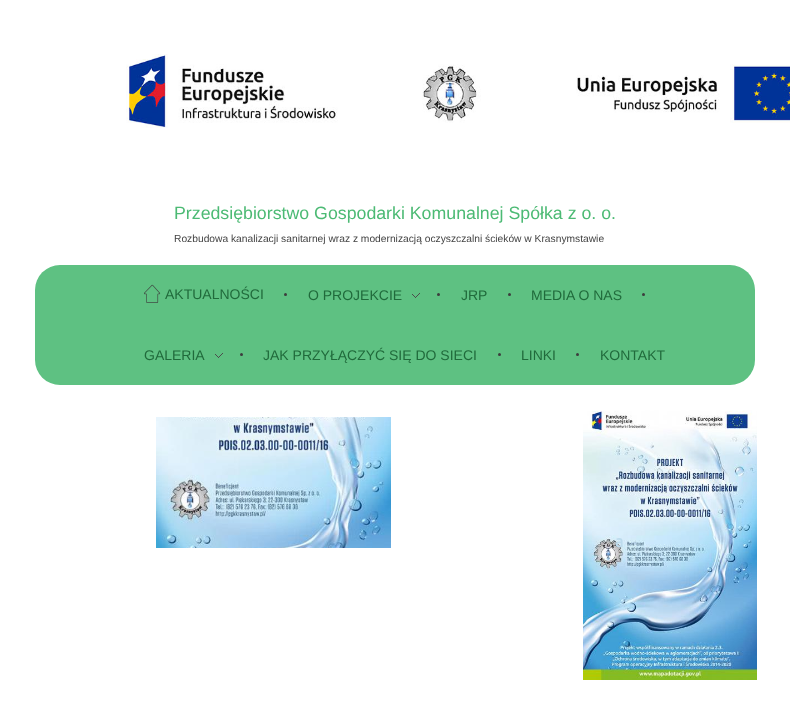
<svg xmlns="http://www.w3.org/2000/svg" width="790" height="702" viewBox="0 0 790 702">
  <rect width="100%" height="100%" fill="#ffffff"/>
  <image x="126" y="54" width="664" height="74" href="img1.png"/>
  <text x="174" y="219" font-family="Liberation Sans" font-size="17.75" fill="#4cba74">Przedsiębiorstwo Gospodarki Komunalnej Spółka z o. o.</text>
  <text x="174" y="242" font-family="Liberation Sans" font-size="10.25" fill="#444444">Rozbudowa kanalizacji sanitarnej wraz z modernizacją oczyszczalni ścieków w Krasnymstawie</text>
  <rect x="35" y="265" width="720" height="120" rx="25" fill="#5ec182"/>
  <image x="144" y="284" width="17" height="19" href="img2.png"/>
  <text x="165" y="299" font-family="Liberation Sans" font-size="14" fill="#206a3b">AKTUALNOŚCI</text>
  <circle cx="285.5" cy="294.5" r="1.5" fill="#3d3d3d"/>
  <text x="308" y="300" font-family="Liberation Sans" font-size="14" fill="#206a3b">O PROJEKCIE</text>
  <image x="412" y="293" width="8" height="5" href="img3.png"/>
  <circle cx="438.5" cy="294.5" r="1.5" fill="#3d3d3d"/>
  <text x="461" y="300" font-family="Liberation Sans" font-size="14" fill="#206a3b">JRP</text>
  <circle cx="509.5" cy="294.5" r="1.5" fill="#3d3d3d"/>
  <text x="531" y="300" font-family="Liberation Sans" font-size="14" fill="#206a3b">MEDIA O NAS</text>
  <circle cx="643.5" cy="294.5" r="1.5" fill="#3d3d3d"/>
  <text x="144" y="360" font-family="Liberation Sans" font-size="14" fill="#206a3b">GALERIA</text>
  <image x="215" y="353" width="8" height="5" href="img3.png"/>
  <circle cx="241.5" cy="354.5" r="1.5" fill="#3d3d3d"/>
  <text x="263" y="360" font-family="Liberation Sans" font-size="14" fill="#206a3b">JAK PRZYŁĄCZYĆ SIĘ DO SIECI</text>
  <circle cx="499.5" cy="354.5" r="1.5" fill="#3d3d3d"/>
  <text x="521" y="360" font-family="Liberation Sans" font-size="14" fill="#206a3b">LINKI</text>
  <circle cx="577.5" cy="354.5" r="1.5" fill="#3d3d3d"/>
  <text x="600" y="360" font-family="Liberation Sans" font-size="14" fill="#206a3b">KONTAKT</text>
  <image x="156" y="417" width="235" height="131" href="img4.png"/>
  <image x="583" y="410" width="174" height="270" href="img5.png"/>
  <text x="615" y="547" font-family="Ubuntu" font-size="16" font-weight="bold" fill="#bddbed">a</text>
</svg>
